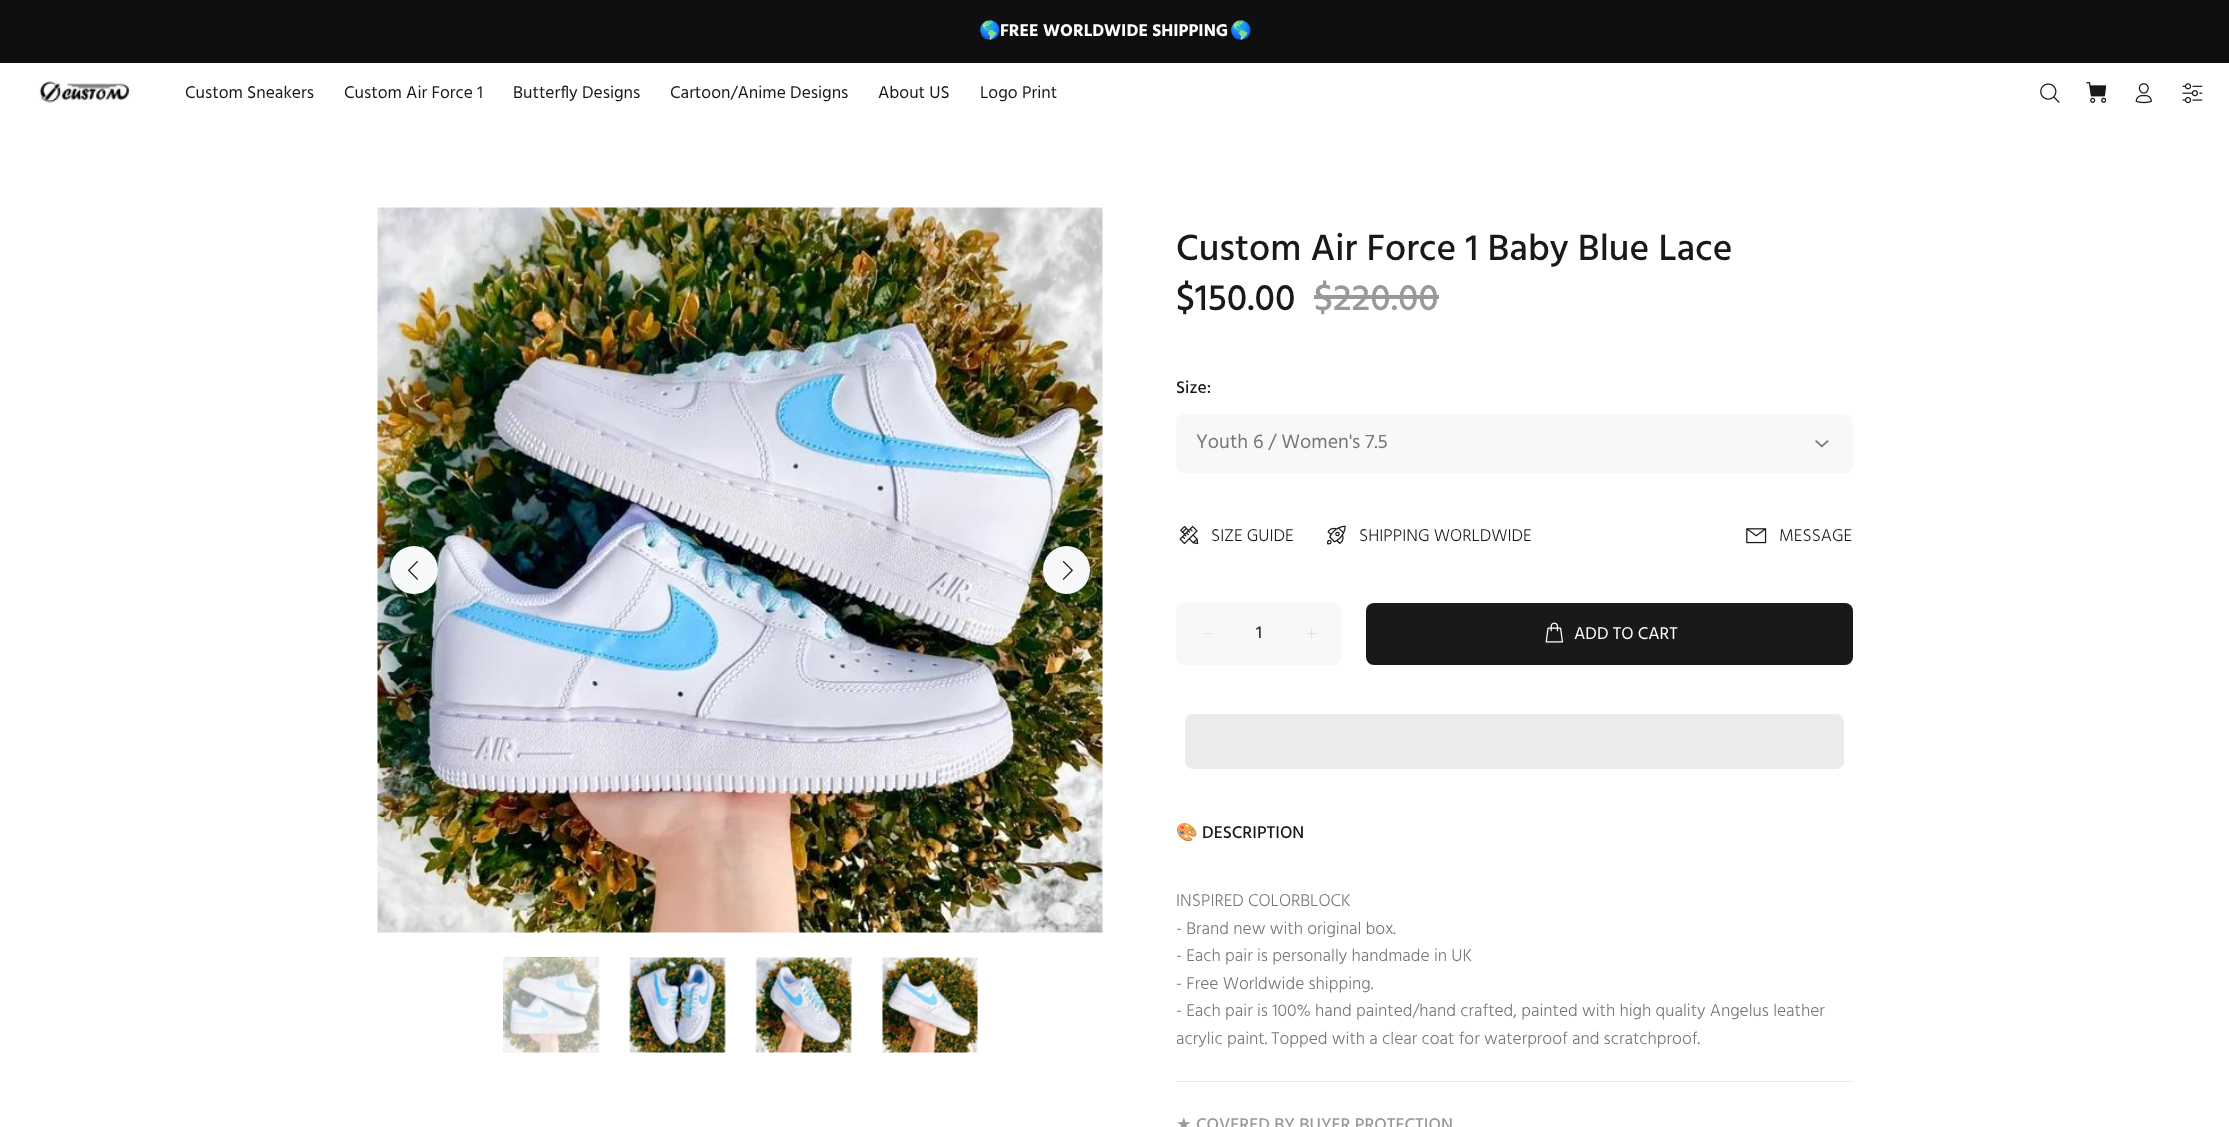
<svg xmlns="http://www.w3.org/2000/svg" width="2229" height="1127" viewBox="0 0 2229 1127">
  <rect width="100%" height="100%" fill="#ffffff"/>
  <rect x="0" y="0" width="2229" height="63" fill="#0f0f0f"/>
  <text x="979" y="36" font-family="Noto Color Emoji" font-size="17.5" font-weight="bold" fill="#ffffff">🌎</text>
  <text x="1000" y="36" font-family="Hind" font-size="17.5" font-weight="bold" fill="#ffffff">FREE WORLDWIDE SHIPPING</text>
  <text x="1230" y="36" font-family="Noto Color Emoji" font-size="17.5" font-weight="bold" fill="#ffffff">🌎</text>
  <image x="39" y="80" width="91" height="23" href="img1.png"/>
  <text x="185" y="98" font-family="Hind" font-size="17.5" fill="#191919">Custom Sneakers</text>
  <text x="344" y="98" font-family="Hind" font-size="17.5" fill="#191919">Custom Air Force 1</text>
  <text x="513" y="98" font-family="Hind" font-size="17.5" fill="#191919">Butterfly Designs</text>
  <text x="670" y="98" font-family="Hind" font-size="17.5" fill="#191919">Cartoon/Anime Designs</text>
  <text x="878" y="98" font-family="Hind" font-size="17.5" fill="#191919">About US</text>
  <text x="980" y="98" font-family="Hind" font-size="17.5" fill="#191919">Logo Print</text>
  <image x="2040" y="83" width="20" height="20" href="img2.png"/>
  <image x="2086" y="82" width="20" height="21" href="img3.png"/>
  <image x="2135" y="83" width="17" height="21" href="img4.png"/>
  <image x="2182" y="83" width="21" height="21" href="img5.png"/>
  <image x="377" y="207" width="726" height="726" href="img6.png"/>
  <circle cx="414" cy="570" r="24" fill="#f7f8fa"/>
  <image x="408" y="561" width="10" height="19" href="img7.png"/>
  <rect x="1043" y="546" width="47" height="48" rx="23.5" fill="#f7f8fa"/>
  <image x="1062" y="561" width="11" height="19" href="img8.png"/>
  <image x="503" y="957" width="97" height="96" href="img9.png"/>
  <image x="629" y="957" width="97" height="96" href="img10.png"/>
  <image x="755" y="957" width="97" height="96" href="img11.png"/>
  <image x="882" y="957" width="96" height="96" href="img12.png"/>
  <text x="1176" y="260" font-family="Hind" font-size="37.5" font-weight="500" fill="#191919">Custom Air Force 1 Baby Blue Lace</text>
  <text x="1176" y="310" font-family="Hind" font-size="37.5" font-weight="500" fill="#191919">$150.00</text>
  <text x="1314" y="310" font-family="Hind" font-size="37.5" font-weight="500" fill="#999999">$220.00</text>
  <rect x="1314" y="295" width="125" height="4" fill="#999999"/>
  <text x="1176" y="393" font-family="Hind" font-size="17.5" font-weight="500" fill="#191919">Size:</text>
  <rect x="1176" y="414" width="677" height="59" rx="8" fill="#f7f8fa"/>
  <image x="1815" y="440" width="14" height="8" href="img13.png"/>
  <text x="1196" y="448" font-family="Hind" font-size="20" fill="#777777">Youth 6 / Women's 7.5</text>
  <image x="1179" y="525" width="20" height="20" href="img14.png"/>
  <text x="1211" y="541" font-family="Hind" font-size="17.5" font-weight="300" fill="#191919">SIZE GUIDE</text>
  <image x="1327" y="525" width="19" height="20" href="img15.png"/>
  <text x="1359" y="541" font-family="Hind" font-size="17.5" font-weight="300" fill="#191919">SHIPPING WORLDWIDE</text>
  <image x="1746" y="528" width="21" height="16" href="img16.png"/>
  <text x="1779" y="541" font-family="Hind" font-size="17.5" font-weight="300" fill="#191919">MESSAGE</text>
  <rect x="1176" y="603" width="165" height="62" rx="8" fill="#f7f8fa"/>
  <path d="M1213 633.5V634H1202L1202.5 633.5Z" fill="#d8d8d8"/>
  <text x="1256" y="638" font-family="Hind" font-size="17.5" font-weight="500" fill="#333333">1</text>
  <image x="1305" y="628" width="12" height="12" href="img17.png"/>
  <rect x="1366" y="603" width="487" height="62" rx="8" fill="#191919"/>
  <image x="1545" y="622" width="19" height="21" href="img18.png"/>
  <text x="1574" y="639" font-family="Hind" font-size="17.5" fill="#ffffff">ADD TO CART</text>
  <rect x="1185" y="714" width="659" height="55" rx="8" fill="#ebebeb"/>
  <rect x="1176" y="1081" width="677" height="1" fill="#e9e7e7"/>
  <text x="1176" y="838" font-family="Noto Color Emoji" font-size="17.5" fill="#191919">🎨</text>
  <text x="1202" y="838" font-family="Hind" font-size="17.5" font-weight="500" fill="#191919">DESCRIPTION</text>
  <text x="1176" y="906" font-family="Hind" font-size="17.5" font-weight="300" fill="#777777">INSPIRED COLORBLOCK</text>
  <text x="1176" y="934" font-family="Hind" font-size="17.5" font-weight="300" fill="#777777">- Brand new with original box.</text>
  <text x="1176" y="961" font-family="Hind" font-size="17.5" font-weight="300" fill="#777777">- Each pair is personally handmade in UK</text>
  <text x="1176" y="989" font-family="Hind" font-size="17.5" font-weight="300" fill="#777777">- Free Worldwide shipping.</text>
  <text x="1176" y="1016" font-family="Hind" font-size="17.5" font-weight="300" fill="#777777">- Each pair is 100% hand painted/hand crafted, painted with high quality Angelus leather</text>
  <text x="1176" y="1044" font-family="Hind" font-size="17.5" font-weight="300" fill="#777777">acrylic paint. Topped with a clear coat for waterproof and scratchproof.</text>
  <text x="1176" y="1130" font-family="DejaVu Sans" font-size="17.5" fill="#999999">★</text>
  <text x="1196" y="1130" font-family="Hind" font-size="17.5" font-weight="500" fill="#999999">COVERED BY BUYER PROTECTION</text>
</svg>
